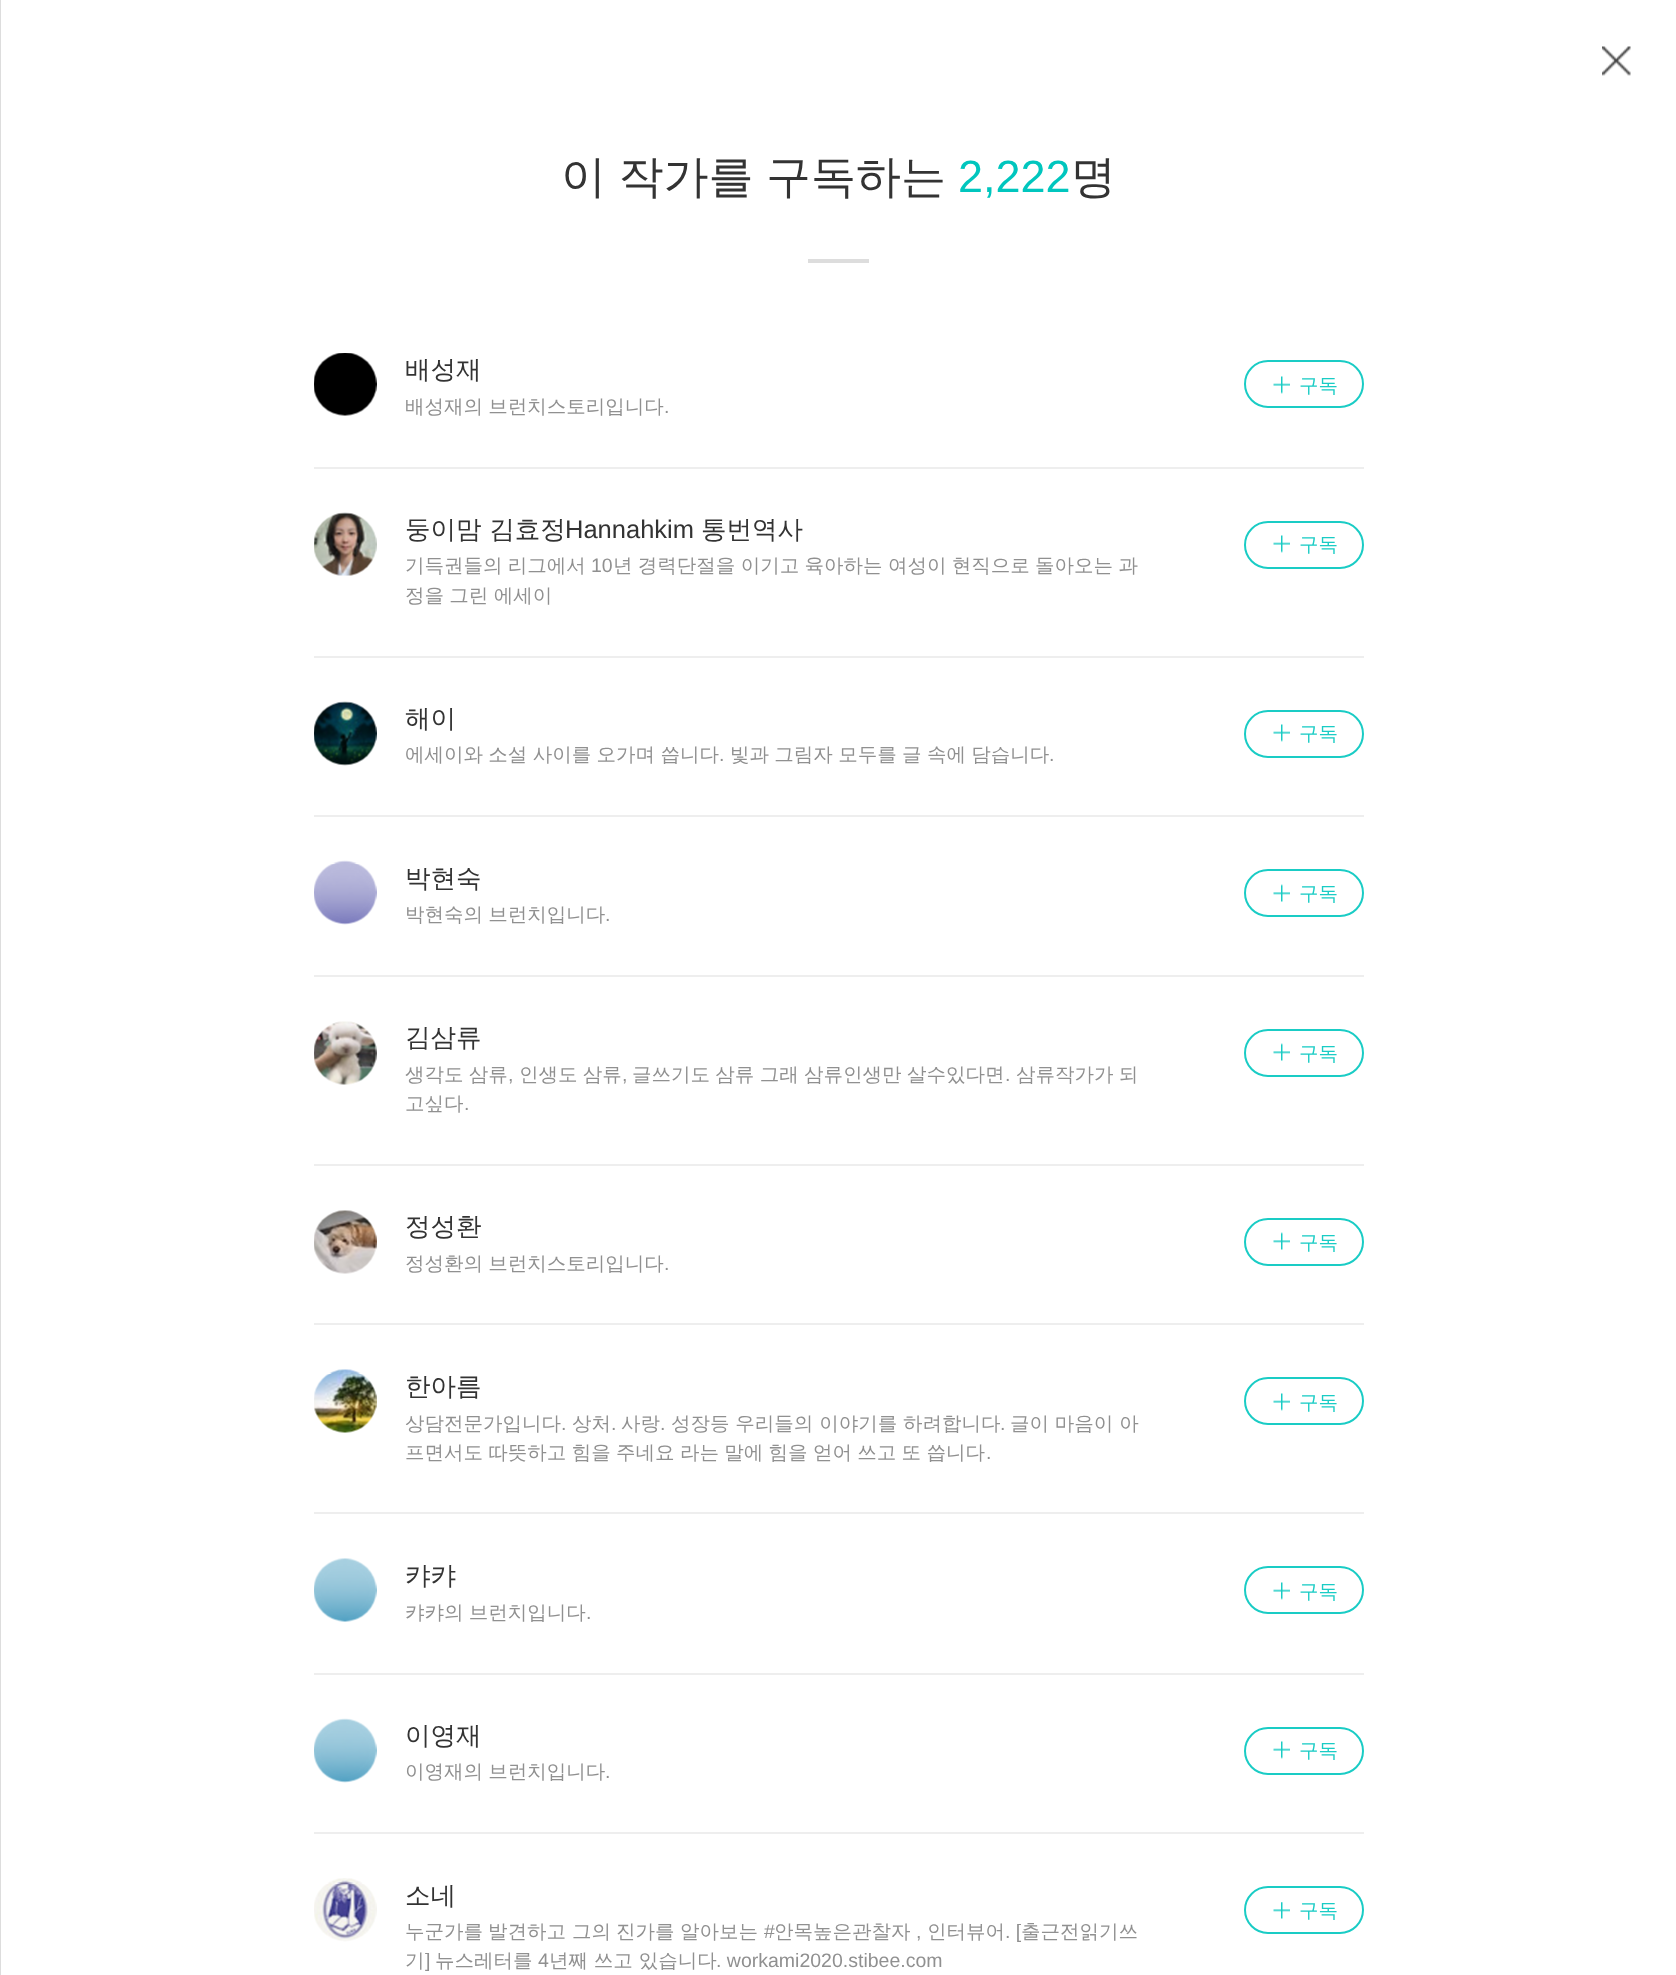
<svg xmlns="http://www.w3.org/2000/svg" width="1676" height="1975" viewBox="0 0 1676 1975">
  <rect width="100%" height="100%" fill="#ffffff"/>
  <rect x="0" y="0" width="1" height="1975" fill="#dddddd"/>
  <image x="1602" y="46" width="29" height="30" href="img1.png"/>
  <rect x="808" y="259" width="61" height="4" fill="#dddddd"/>
  <text x="561" y="192" word-spacing="-1" font-family="WenQuanYi Zen Hei" font-size="45" font-weight="500" fill="#333333">이 작가를 구독하는</text>
  <text x="958" y="192" font-family="Liberation Sans" font-size="45" fill="#00c6be">2,222</text>
  <text x="1071" y="192" font-family="WenQuanYi Zen Hei" font-size="45" font-weight="500" fill="#333333">명</text>
  <rect x="314" y="467" width="1050" height="2" fill="#eeeeee"/>
  <image x="314" y="353" width="63" height="63" href="img2.png"/>
  <text x="405" y="378" font-family="WenQuanYi Zen Hei" font-size="25.5" font-weight="500" fill="#333333">배성재</text>
  <text x="405" y="413" word-spacing="-0.5" font-family="WenQuanYi Zen Hei" font-size="19.5" font-weight="500" fill="#909090">배성재의 브런치스토리입니다</text>
  <text x="664" y="413" font-family="Liberation Sans" font-size="19.5" fill="#909090">.</text>
  <rect x="1245" y="361" width="118" height="46" rx="23" fill="none" stroke="#1accc5" stroke-width="2"/>
  <image x="1273" y="376" width="17" height="18" href="img3.png"/>
  <text x="1299" y="392" font-family="WenQuanYi Zen Hei" font-size="19.5" font-weight="500" fill="#1accc5">구독</text>
  <rect x="314" y="656" width="1050" height="2" fill="#eeeeee"/>
  <image x="314" y="512" width="63" height="64" href="img4.png"/>
  <text x="405" y="538" font-family="WenQuanYi Zen Hei" font-size="25.5" font-weight="500" fill="#333333">둥이맘 김효정</text>
  <text x="565" y="538" font-family="Liberation Sans" font-size="25.5" fill="#333333">Hannahkim</text>
  <text x="701" y="538" font-family="WenQuanYi Zen Hei" font-size="25.5" font-weight="500" fill="#333333">통번역사</text>
  <text x="405" y="572" word-spacing="-0.5" font-family="WenQuanYi Zen Hei" font-size="19.5" font-weight="500" fill="#909090">기득권들의 리그에서</text>
  <text x="591" y="572" font-family="Liberation Sans" font-size="19.5" fill="#909090">10</text>
  <text x="613" y="572" word-spacing="-0.5" font-family="WenQuanYi Zen Hei" font-size="19.5" font-weight="500" fill="#909090">년 경력단절을 이기고 육아하는 여성이 현직으로 돌아오는 과</text>
  <text x="405" y="602" word-spacing="-0.5" font-family="WenQuanYi Zen Hei" font-size="19.5" font-weight="500" fill="#909090">정을 그린 에세이</text>
  <rect x="1245" y="522" width="118" height="46" rx="23" fill="none" stroke="#1accc5" stroke-width="2"/>
  <image x="1273" y="535" width="17" height="18" href="img3.png"/>
  <text x="1299" y="551" font-family="WenQuanYi Zen Hei" font-size="19.5" font-weight="500" fill="#1accc5">구독</text>
  <rect x="314" y="815" width="1050" height="2" fill="#eeeeee"/>
  <image x="314" y="701" width="63" height="65" href="img5.png"/>
  <text x="405" y="727" font-family="WenQuanYi Zen Hei" font-size="25.5" font-weight="500" fill="#333333">해이</text>
  <text x="405" y="761" word-spacing="-0.5" font-family="WenQuanYi Zen Hei" font-size="19.5" font-weight="500" fill="#909090">에세이와 소설 사이를 오가며 씁니다</text>
  <text x="719" y="761" font-family="Liberation Sans" font-size="19.5" fill="#909090">.</text>
  <text x="730" y="761" word-spacing="-0.5" font-family="WenQuanYi Zen Hei" font-size="19.5" font-weight="500" fill="#909090">빛과 그림자 모두를 글 속에 담습니다</text>
  <text x="1049" y="761" font-family="Liberation Sans" font-size="19.5" fill="#909090">.</text>
  <rect x="1245" y="711" width="118" height="46" rx="23" fill="none" stroke="#1accc5" stroke-width="2"/>
  <image x="1273" y="724" width="17" height="18" href="img3.png"/>
  <text x="1299" y="740" font-family="WenQuanYi Zen Hei" font-size="19.5" font-weight="500" fill="#1accc5">구독</text>
  <rect x="314" y="975" width="1050" height="2" fill="#eeeeee"/>
  <image x="314" y="860" width="63" height="65" href="img6.png"/>
  <text x="405" y="887" font-family="WenQuanYi Zen Hei" font-size="25.5" font-weight="500" fill="#333333">박현숙</text>
  <text x="405" y="921" word-spacing="-0.5" font-family="WenQuanYi Zen Hei" font-size="19.5" font-weight="500" fill="#909090">박현숙의 브런치입니다</text>
  <text x="605" y="921" font-family="Liberation Sans" font-size="19.5" fill="#909090">.</text>
  <rect x="1245" y="870" width="118" height="46" rx="23" fill="none" stroke="#1accc5" stroke-width="2"/>
  <image x="1273" y="884" width="17" height="18" href="img7.png"/>
  <text x="1299" y="900" font-family="WenQuanYi Zen Hei" font-size="19.5" font-weight="500" fill="#1accc5">구독</text>
  <rect x="314" y="1164" width="1050" height="2" fill="#eeeeee"/>
  <image x="314" y="1021" width="63" height="64" href="img8.png"/>
  <text x="405" y="1046" font-family="WenQuanYi Zen Hei" font-size="25.5" font-weight="500" fill="#333333">김삼류</text>
  <text x="405" y="1081" word-spacing="-0.5" font-family="WenQuanYi Zen Hei" font-size="19.5" font-weight="500" fill="#909090">생각도 삼류</text>
  <text x="508" y="1081" font-family="Liberation Sans" font-size="19.5" fill="#909090">,</text>
  <text x="519" y="1081" word-spacing="-0.5" font-family="WenQuanYi Zen Hei" font-size="19.5" font-weight="500" fill="#909090">인생도 삼류</text>
  <text x="622" y="1081" font-family="Liberation Sans" font-size="19.5" fill="#909090">,</text>
  <text x="632" y="1081" word-spacing="-0.5" font-family="WenQuanYi Zen Hei" font-size="19.5" font-weight="500" fill="#909090">글쓰기도 삼류 그래 삼류인생만 살수있다면</text>
  <text x="1005" y="1081" font-family="Liberation Sans" font-size="19.5" fill="#909090">.</text>
  <text x="1016" y="1081" word-spacing="-0.5" font-family="WenQuanYi Zen Hei" font-size="19.5" font-weight="500" fill="#909090">삼류작가가 되</text>
  <text x="405" y="1110" font-family="WenQuanYi Zen Hei" font-size="19.5" font-weight="500" fill="#909090">고싶다</text>
  <text x="464" y="1110" font-family="Liberation Sans" font-size="19.5" fill="#909090">.</text>
  <rect x="1245" y="1030" width="118" height="46" rx="23" fill="none" stroke="#1accc5" stroke-width="2"/>
  <image x="1273" y="1043" width="17" height="18" href="img7.png"/>
  <text x="1299" y="1060" font-family="WenQuanYi Zen Hei" font-size="19.5" font-weight="500" fill="#1accc5">구독</text>
  <rect x="314" y="1323" width="1050" height="2" fill="#eeeeee"/>
  <image x="314" y="1210" width="63" height="64" href="img9.png"/>
  <text x="405" y="1235" font-family="WenQuanYi Zen Hei" font-size="25.5" font-weight="500" fill="#333333">정성환</text>
  <text x="405" y="1270" word-spacing="-0.5" font-family="WenQuanYi Zen Hei" font-size="19.5" font-weight="500" fill="#909090">정성환의 브런치스토리입니다</text>
  <text x="664" y="1270" font-family="Liberation Sans" font-size="19.5" fill="#909090">.</text>
  <rect x="1245" y="1219" width="118" height="46" rx="23" fill="none" stroke="#1accc5" stroke-width="2"/>
  <image x="1273" y="1232" width="17" height="18" href="img7.png"/>
  <text x="1299" y="1249" font-family="WenQuanYi Zen Hei" font-size="19.5" font-weight="500" fill="#1accc5">구독</text>
  <rect x="314" y="1512" width="1050" height="2" fill="#eeeeee"/>
  <image x="314" y="1369" width="63" height="64" href="img10.png"/>
  <text x="405" y="1395" font-family="WenQuanYi Zen Hei" font-size="25.5" font-weight="500" fill="#333333">한아름</text>
  <text x="405" y="1430" font-family="WenQuanYi Zen Hei" font-size="19.5" font-weight="500" fill="#909090">상담전문가입니다</text>
  <text x="561" y="1430" font-family="Liberation Sans" font-size="19.5" fill="#909090">.</text>
  <text x="572" y="1430" font-family="WenQuanYi Zen Hei" font-size="19.5" font-weight="500" fill="#909090">상처</text>
  <text x="611" y="1430" font-family="Liberation Sans" font-size="19.5" fill="#909090">.</text>
  <text x="621" y="1430" font-family="WenQuanYi Zen Hei" font-size="19.5" font-weight="500" fill="#909090">사랑</text>
  <text x="660" y="1430" font-family="Liberation Sans" font-size="19.5" fill="#909090">.</text>
  <text x="671" y="1430" font-family="WenQuanYi Zen Hei" font-size="19.5" font-weight="500" fill="#909090">성장등 우리들의 이야기를 하려합니다</text>
  <text x="1000" y="1430" font-family="Liberation Sans" font-size="19.5" fill="#909090">.</text>
  <text x="1010" y="1430" font-family="WenQuanYi Zen Hei" font-size="19.5" font-weight="500" fill="#909090">글이 마음이 아</text>
  <text x="405" y="1459" word-spacing="-0.5" font-family="WenQuanYi Zen Hei" font-size="19.5" font-weight="500" fill="#909090">프면서도 따뜻하고 힘을 주네요 라는 말에 힘을 얻어 쓰고 또 씁니다</text>
  <text x="986" y="1459" font-family="Liberation Sans" font-size="19.5" fill="#909090">.</text>
  <rect x="1245" y="1378" width="118" height="46" rx="23" fill="none" stroke="#1accc5" stroke-width="2"/>
  <image x="1273" y="1393" width="17" height="18" href="img3.png"/>
  <text x="1299" y="1409" font-family="WenQuanYi Zen Hei" font-size="19.5" font-weight="500" fill="#1accc5">구독</text>
  <rect x="314" y="1673" width="1050" height="2" fill="#eeeeee"/>
  <image x="314" y="1558" width="63" height="64" href="img11.png"/>
  <text x="405" y="1584" font-family="WenQuanYi Zen Hei" font-size="25.5" font-weight="500" fill="#333333">캬캬</text>
  <text x="405" y="1619" word-spacing="-0.5" font-family="WenQuanYi Zen Hei" font-size="19.5" font-weight="500" fill="#909090">캬캬의 브런치입니다</text>
  <text x="586" y="1619" font-family="Liberation Sans" font-size="19.5" fill="#909090">.</text>
  <rect x="1245" y="1567" width="118" height="46" rx="23" fill="none" stroke="#1accc5" stroke-width="2"/>
  <image x="1273" y="1582" width="17" height="18" href="img3.png"/>
  <text x="1299" y="1598" font-family="WenQuanYi Zen Hei" font-size="19.5" font-weight="500" fill="#1accc5">구독</text>
  <rect x="314" y="1832" width="1050" height="2" fill="#eeeeee"/>
  <image x="314" y="1718" width="63" height="65" href="img12.png"/>
  <text x="405" y="1744" font-family="WenQuanYi Zen Hei" font-size="25.5" font-weight="500" fill="#333333">이영재</text>
  <text x="405" y="1778" word-spacing="-0.5" font-family="WenQuanYi Zen Hei" font-size="19.5" font-weight="500" fill="#909090">이영재의 브런치입니다</text>
  <text x="605" y="1778" font-family="Liberation Sans" font-size="19.5" fill="#909090">.</text>
  <rect x="1245" y="1728" width="118" height="46" rx="23" fill="none" stroke="#1accc5" stroke-width="2"/>
  <image x="1273" y="1741" width="17" height="18" href="img3.png"/>
  <text x="1299" y="1757" font-family="WenQuanYi Zen Hei" font-size="19.5" font-weight="500" fill="#1accc5">구독</text>
  <image x="314" y="1878" width="63" height="64" href="img13.png"/>
  <text x="405" y="1904" font-family="WenQuanYi Zen Hei" font-size="25.5" font-weight="500" fill="#333333">소네</text>
  <text x="405" y="1938" font-family="WenQuanYi Zen Hei" font-size="19.5" font-weight="500" fill="#909090">누군가를</text>
  <text x="488" y="1938" font-family="WenQuanYi Zen Hei" font-size="19.5" font-weight="500" fill="#909090">발견하고</text>
  <text x="572" y="1938" font-family="WenQuanYi Zen Hei" font-size="19.5" font-weight="500" fill="#909090">그의</text>
  <text x="616" y="1938" font-family="WenQuanYi Zen Hei" font-size="19.5" font-weight="500" fill="#909090">진가를</text>
  <text x="680" y="1938" font-family="WenQuanYi Zen Hei" font-size="19.5" font-weight="500" fill="#909090">알아보는</text>
  <text x="764" y="1938" font-family="Liberation Sans" font-size="19.5" fill="#909090">#</text>
  <text x="774" y="1938" font-family="WenQuanYi Zen Hei" font-size="19.5" font-weight="500" fill="#909090">안목높은관찰자</text>
  <text x="916" y="1938" font-family="Liberation Sans" font-size="19.5" fill="#909090">,</text>
  <text x="927" y="1938" font-family="WenQuanYi Zen Hei" font-size="19.5" font-weight="500" fill="#909090">인터뷰어</text>
  <text x="1005" y="1938" font-family="Liberation Sans" font-size="19.5" fill="#909090">. [</text>
  <text x="1021" y="1938" font-family="WenQuanYi Zen Hei" font-size="19.5" font-weight="500" fill="#909090">출근전읽기쓰</text>
  <text x="405" y="1967" font-family="WenQuanYi Zen Hei" font-size="19.5" font-weight="500" fill="#909090">기</text>
  <text x="425" y="1967" font-family="Liberation Sans" font-size="19.5" fill="#909090">]</text>
  <text x="435" y="1967" font-family="WenQuanYi Zen Hei" font-size="19.5" font-weight="500" fill="#909090">뉴스레터를</text>
  <text x="538" y="1967" font-family="Liberation Sans" font-size="19.5" fill="#909090">4</text>
  <text x="549" y="1967" font-family="WenQuanYi Zen Hei" font-size="19.5" font-weight="500" fill="#909090">년째 쓰고 있습니다</text>
  <text x="716" y="1967" font-family="Liberation Sans" font-size="19.5" fill="#909090">. workami2020.stibee.com</text>
  <rect x="1245" y="1887" width="118" height="46" rx="23" fill="none" stroke="#1accc5" stroke-width="2"/>
  <image x="1273" y="1902" width="17" height="17" href="img14.png"/>
  <text x="1299" y="1917" font-family="WenQuanYi Zen Hei" font-size="19.5" font-weight="500" fill="#1accc5">구독</text>
</svg>
